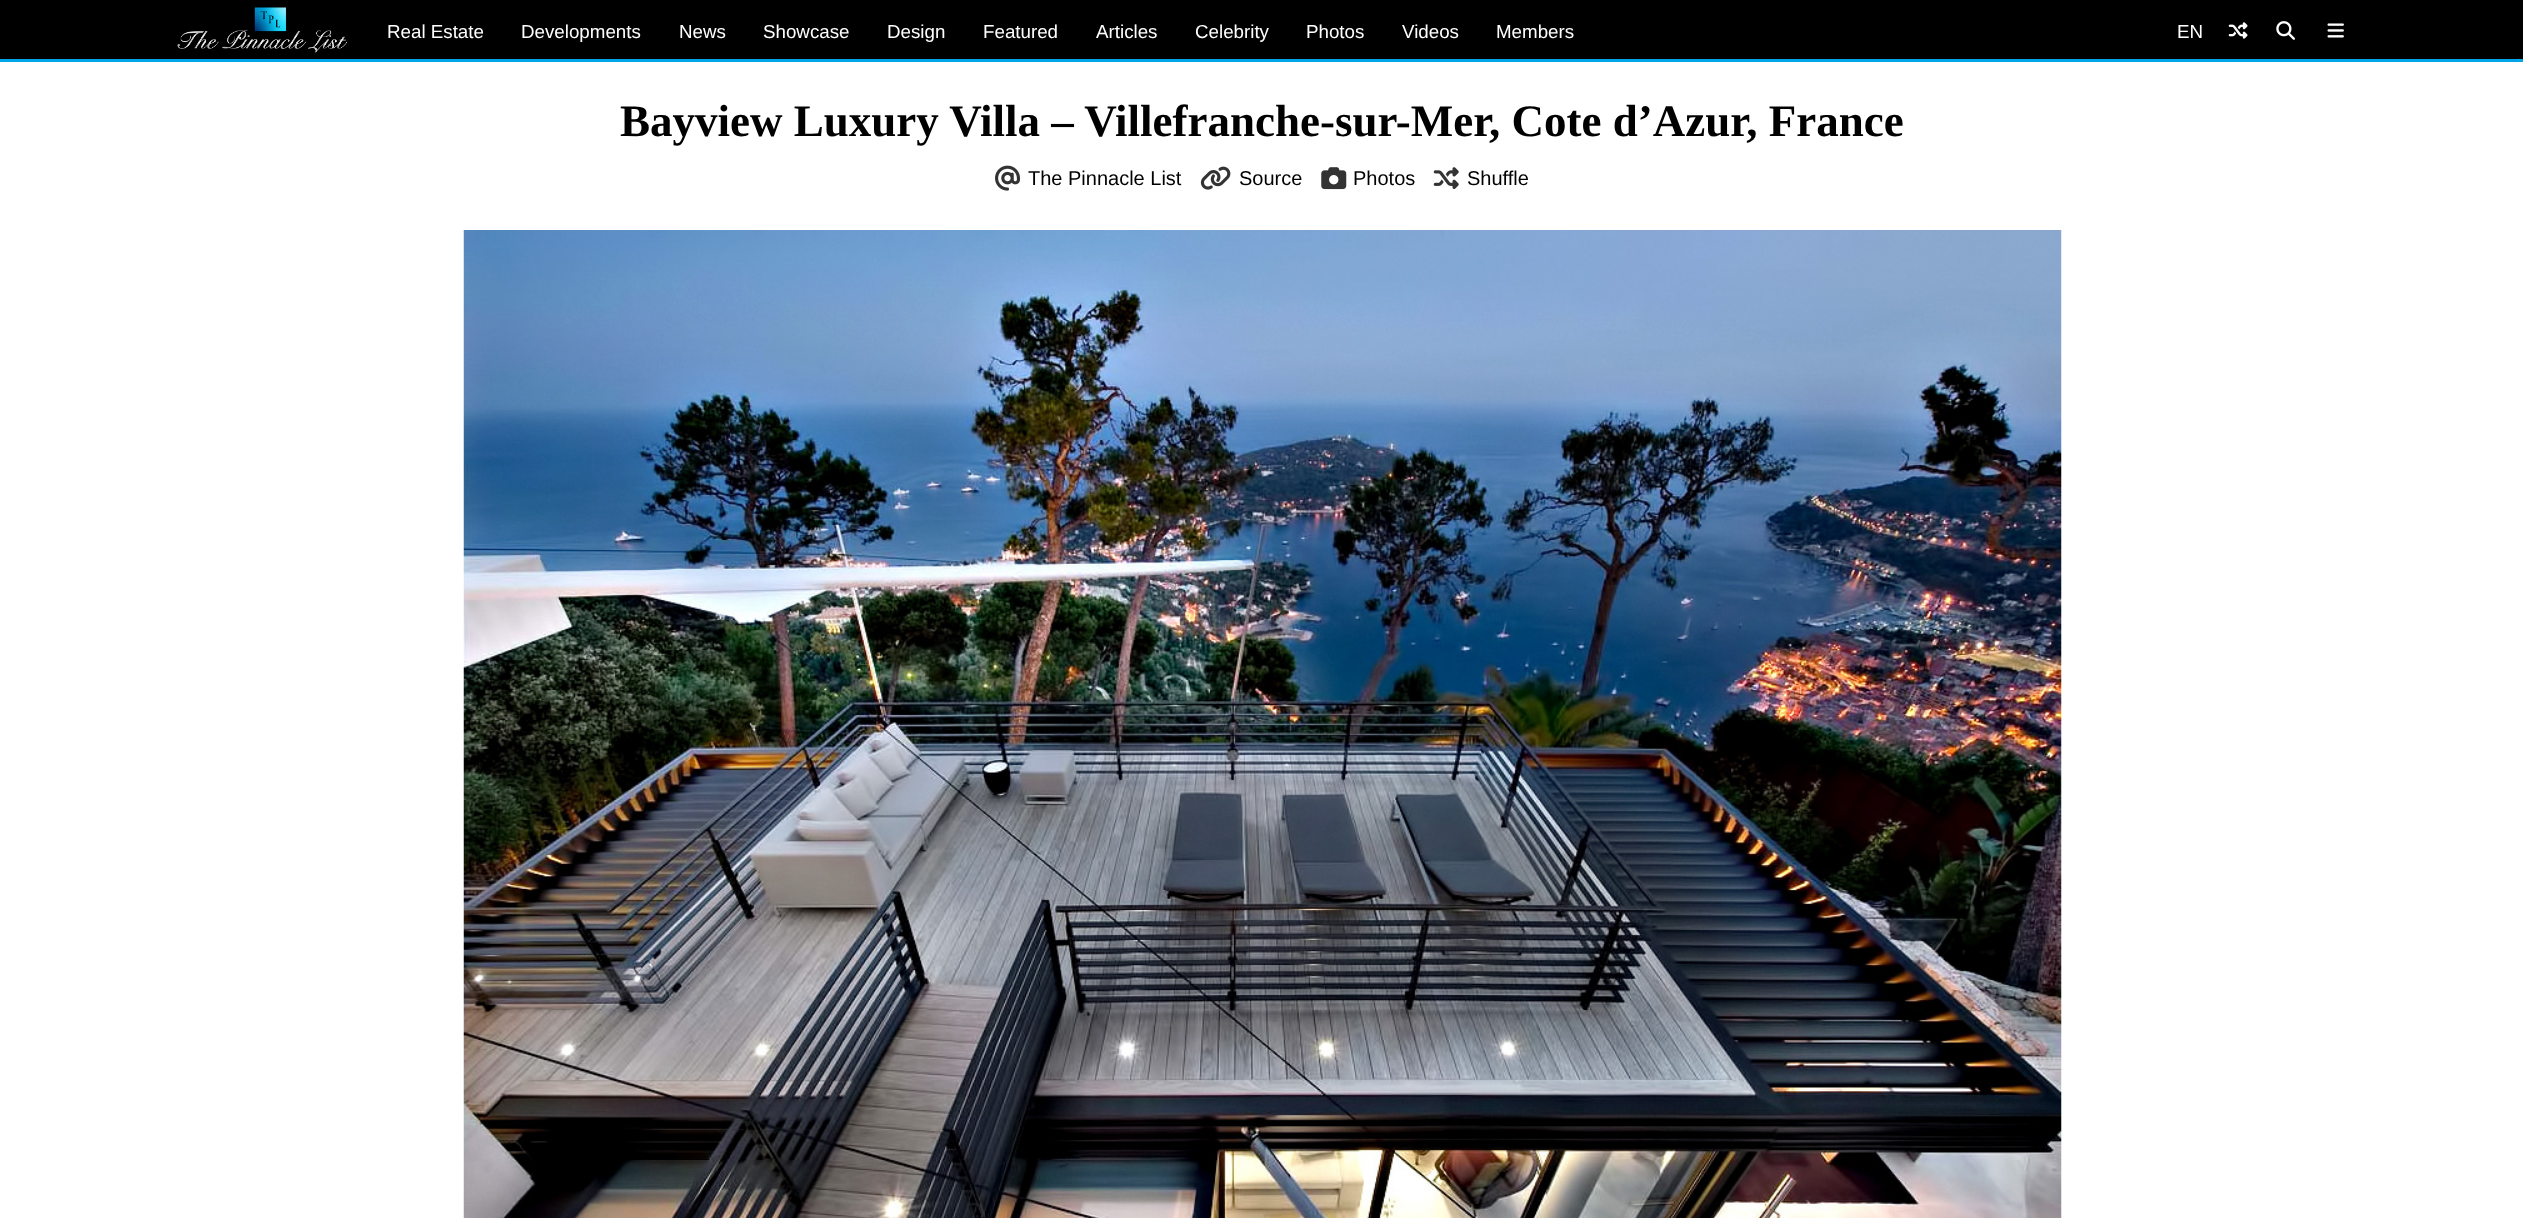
<svg xmlns="http://www.w3.org/2000/svg" width="2523" height="1218" viewBox="0 0 2523 1218">
  <rect width="100%" height="100%" fill="#000000"/>
  <rect x="0" y="62" width="2523" height="1156" fill="#ffffff"/>
  <rect x="0" y="59" width="2523" height="3" fill="#00a4e8"/>
  <image x="177" y="7" width="171" height="46" href="img1.png"/>
  <text x="387" y="38" font-family="Liberation Sans" font-size="18.75" fill="#ffffff">Real Estate</text>
  <text x="521" y="38" font-family="Liberation Sans" font-size="18.75" fill="#ffffff">Developments</text>
  <text x="679" y="38" font-family="Liberation Sans" font-size="18.75" fill="#ffffff">News</text>
  <text x="763" y="38" font-family="Liberation Sans" font-size="18.75" fill="#ffffff">Showcase</text>
  <text x="887" y="38" font-family="Liberation Sans" font-size="18.75" fill="#ffffff">Design</text>
  <text x="983" y="38" font-family="Liberation Sans" font-size="18.75" fill="#ffffff">Featured</text>
  <text x="1096" y="38" font-family="Liberation Sans" font-size="18.75" fill="#ffffff">Articles</text>
  <text x="1195" y="38" font-family="Liberation Sans" font-size="18.75" fill="#ffffff">Celebrity</text>
  <text x="1306" y="38" font-family="Liberation Sans" font-size="18.75" fill="#ffffff">Photos</text>
  <text x="1402" y="38" font-family="Liberation Sans" font-size="18.75" fill="#ffffff">Videos</text>
  <text x="1496" y="38" font-family="Liberation Sans" font-size="18.75" fill="#ffffff">Members</text>
  <text x="2177" y="38" font-family="Liberation Sans" font-size="18.75" fill="#ffffff">EN</text>
  <image x="2228" y="22" width="20" height="17" href="img2.png"/>
  <image x="2276" y="21" width="19" height="19" href="img3.png"/>
  <image x="2327" y="23" width="17" height="15" href="img4.png"/>
  <text x="620" y="136" font-family="Liberation Serif" font-size="45" font-weight="bold" fill="#000000">Bayview Luxury Villa – Villefranche-sur-Mer, Cote d’Azur, France</text>
  <image x="995" y="165" width="25" height="26" href="img5.png"/>
  <text x="1028" y="185" font-family="Liberation Sans" font-size="20" fill="#000000">The Pinnacle List</text>
  <image x="1200" y="166" width="31" height="24" href="img6.png"/>
  <text x="1239" y="185" font-family="Liberation Sans" font-size="20" fill="#000000">Source</text>
  <image x="1321" y="167" width="26" height="23" href="img7.png"/>
  <text x="1353" y="185" font-family="Liberation Sans" font-size="20" fill="#000000">Photos</text>
  <image x="1433" y="167" width="26" height="22" href="img8.png"/>
  <text x="1467" y="185" font-family="Liberation Sans" font-size="20" fill="#000000">Shuffle</text>
  <image x="463" y="230" width="1599" height="988" href="img9.png"/>
</svg>
